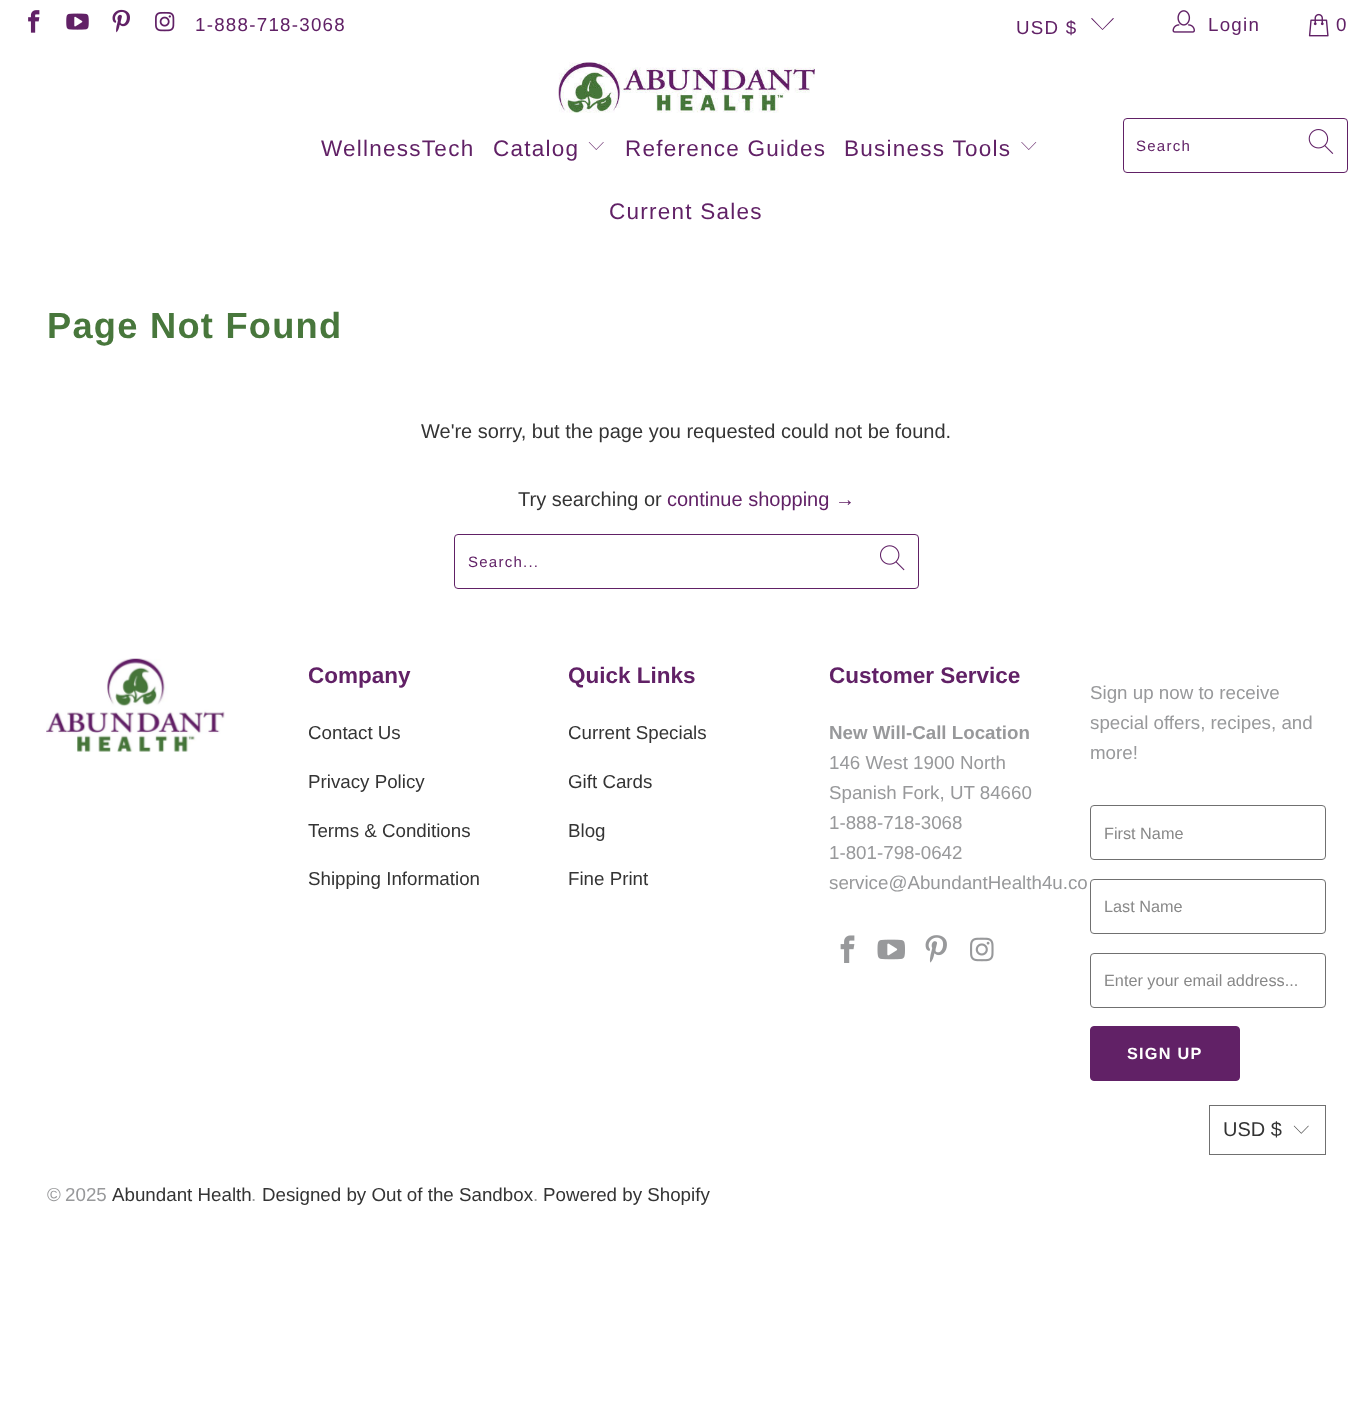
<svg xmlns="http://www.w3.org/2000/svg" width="1372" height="1413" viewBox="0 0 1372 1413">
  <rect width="100%" height="100%" fill="#ffffff"/>
  <image x="28" y="10" width="12" height="23" href="img1.png"/>
  <image x="66" y="13" width="23" height="17" href="img2.png"/>
  <image x="112" y="9" width="18" height="24" href="img3.png"/>
  <image x="155" y="11" width="20" height="21" href="img4.png"/>
  <text x="195" y="31" font-family="Liberation Sans" font-size="18.75" letter-spacing="1.25" fill="#612166">1-888-718-3068</text>
  <text x="1016" y="34" font-family="Liberation Sans" font-size="18.75" letter-spacing="1.25" fill="#612166">USD $</text>
  <path d="M1102.5 30L1091 18.5L1092 18L1102.5 29L1113 18L1114 18.5Z" fill="#612166"/>
  <image x="1172" y="10" width="23" height="23" href="img5.png"/>
  <text x="1208" y="31" font-family="Liberation Sans" font-size="18.75" letter-spacing="1.25" fill="#612166">Login</text>
  <image x="1308" y="13" width="21" height="24" href="img6.png"/>
  <text x="1336" y="31" font-family="Liberation Sans" font-size="18.75" letter-spacing="1.25" fill="#612166">0</text>
  <image x="558" y="62" width="257" height="51" href="img7.png"/>
  <text x="321" y="156" font-family="Liberation Sans" font-size="22.5" letter-spacing="1.25" fill="#612166">WellnessTech</text>
  <text x="493" y="156" font-family="Liberation Sans" font-size="22.5" letter-spacing="1.25" fill="#612166">Catalog</text>
  <image x="588" y="142" width="16" height="8" href="img8.png"/>
  <text x="625" y="156" font-family="Liberation Sans" font-size="22.5" letter-spacing="1.25" fill="#612166">Reference Guides</text>
  <text x="844" y="156" font-family="Liberation Sans" font-size="22.5" letter-spacing="1.25" fill="#612166">Business Tools</text>
  <image x="1021" y="142" width="16" height="8" href="img9.png"/>
  <text x="609" y="219" font-family="Liberation Sans" font-size="22.5" letter-spacing="1.25" fill="#612166">Current Sales</text>
  <rect x="1123.5" y="118.5" width="224" height="54" rx="3.5" fill="none" stroke="#612166"/>
  <text x="1136" y="151" font-family="Liberation Sans" font-size="15" letter-spacing="1.25" fill="#612166">Search</text>
  <image x="1308" y="129" width="26" height="25" href="img10.png"/>
  <text x="47" y="338" font-family="Liberation Sans" font-size="36.25" font-weight="bold" letter-spacing="1.25" fill="#48773c">Page Not Found</text>
  <text x="421" y="438" font-family="Liberation Sans" font-size="20" fill="#343434">We're sorry, but the page you requested could not be found.</text>
  <text x="518" y="506" font-family="Liberation Sans" font-size="20" fill="#343434">Try searching or</text>
  <text x="667" y="506" font-family="Liberation Sans" font-size="20" fill="#612166">continue shopping →</text>
  <rect x="454.5" y="534.5" width="464" height="54" rx="3.5" fill="none" stroke="#612166"/>
  <text x="468" y="567" font-family="Liberation Sans" font-size="15" letter-spacing="1.25" fill="#612166">Search...</text>
  <image x="880" y="545" width="25" height="26" href="img11.png"/>
  <image x="46" y="658" width="179" height="94" href="img12.png"/>
  <text x="308" y="683" font-family="Liberation Sans" font-size="22.5" font-weight="bold" fill="#612166">Company</text>
  <text x="308" y="739" font-family="Liberation Sans" font-size="18.75" fill="#343434">Contact Us</text>
  <text x="308" y="788" font-family="Liberation Sans" font-size="18.75" fill="#343434">Privacy Policy</text>
  <text x="308" y="837" font-family="Liberation Sans" font-size="18.75" fill="#343434">Terms &amp; Conditions</text>
  <text x="308" y="885" font-family="Liberation Sans" font-size="18.75" fill="#343434">Shipping Information</text>
  <text x="568" y="683" font-family="Liberation Sans" font-size="22.5" font-weight="bold" fill="#612166">Quick Links</text>
  <text x="568" y="739" font-family="Liberation Sans" font-size="18.75" fill="#343434">Current Specials</text>
  <text x="568" y="788" font-family="Liberation Sans" font-size="18.75" fill="#343434">Gift Cards</text>
  <text x="568" y="837" font-family="Liberation Sans" font-size="18.75" fill="#343434">Blog</text>
  <text x="568" y="885" font-family="Liberation Sans" font-size="18.75" fill="#343434">Fine Print</text>
  <text x="829" y="683" font-family="Liberation Sans" font-size="22.5" font-weight="bold" fill="#612166">Customer Service</text>
  <text x="829" y="739" font-family="Liberation Sans" font-size="18.75" font-weight="bold" fill="#98999b">New Will-Call Location</text>
  <text x="829" y="769" font-family="Liberation Sans" font-size="18.75" fill="#98999b">146 West 1900 North</text>
  <text x="829" y="799" font-family="Liberation Sans" font-size="18.75" fill="#98999b">Spanish Fork, UT 84660</text>
  <text x="829" y="829" font-family="Liberation Sans" font-size="18.75" fill="#98999b">1-888-718-3068</text>
  <text x="829" y="859" font-family="Liberation Sans" font-size="18.75" fill="#98999b">1-801-798-0642</text>
  <text x="829" y="889" font-family="Liberation Sans" font-size="18.75" fill="#98999b">service@AbundantHealth4u.co</text>
  <image x="840" y="935" width="15" height="28" href="img13.png"/>
  <image x="877" y="939" width="28" height="21" href="img14.png"/>
  <image x="925" y="935" width="22" height="28" href="img15.png"/>
  <image x="970" y="937" width="24" height="25" href="img16.png"/>
  <text x="1090" y="699" font-family="Liberation Sans" font-size="18.75" fill="#98999b">Sign up now to receive</text>
  <text x="1090" y="729" font-family="Liberation Sans" font-size="18.75" fill="#98999b">special offers, recipes, and</text>
  <text x="1090" y="759" font-family="Liberation Sans" font-size="18.75" fill="#98999b">more!</text>
  <rect x="1090.5" y="805.5" width="235" height="54" rx="3.5" fill="none" stroke="#707070"/>
  <text x="1104" y="839" font-family="Liberation Sans" font-size="16.25" fill="#888888">First Name</text>
  <rect x="1090.5" y="879.5" width="235" height="54" rx="3.5" fill="none" stroke="#707070"/>
  <text x="1104" y="912" font-family="Liberation Sans" font-size="16.25" fill="#888888">Last Name</text>
  <rect x="1090.5" y="953.5" width="235" height="54" rx="3.5" fill="none" stroke="#707070"/>
  <text x="1104" y="986" font-family="Liberation Sans" font-size="16.25" fill="#888888">Enter your email address...</text>
  <rect x="1090.5" y="1026.5" width="149" height="54" rx="3.5" fill="#612166" stroke="#612166"/>
  <text x="1127" y="1059" font-family="Liberation Sans" font-size="16.25" font-weight="bold" letter-spacing="1.25" fill="#ffffff">SIGN UP</text>
  <rect x="1209.5" y="1105.5" width="116" height="49" fill="none" stroke="#707070"/>
  <text x="1223" y="1136" font-family="Liberation Sans" font-size="20" fill="#343434">USD $</text>
  <image x="1293" y="1125" width="16" height="9" href="img17.png"/>
  <text x="47" y="1201" word-spacing="-1" font-family="Liberation Sans" font-size="18.75" fill="#98999b">© 2025</text>
  <text x="112" y="1201" font-family="Liberation Sans" font-size="18.75" fill="#343434">Abundant Health</text>
  <text x="251" y="1201" font-family="Liberation Sans" font-size="18.75" fill="#98999b">.</text>
  <text x="262" y="1201" font-family="Liberation Sans" font-size="18.75" fill="#343434">Designed by Out of the Sandbox</text>
  <text x="533" y="1201" font-family="Liberation Sans" font-size="18.75" fill="#98999b">.</text>
  <text x="543" y="1201" font-family="Liberation Sans" font-size="18.75" fill="#343434">Powered by Shopify</text>
</svg>
